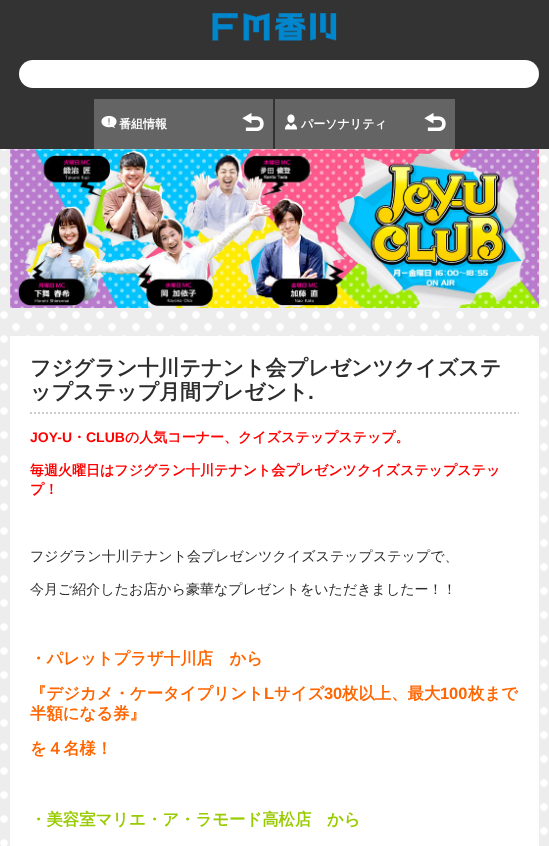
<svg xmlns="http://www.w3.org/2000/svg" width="549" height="846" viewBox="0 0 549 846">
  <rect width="100%" height="100%" fill="#ffffff"/>
  <rect x="0" y="0" width="549" height="149" fill="#333333"/>
  <image x="212" y="13" width="125" height="28" href="img1.png"/>
  <rect x="19" y="60" width="520" height="28" rx="14" fill="#ffffff"/>
  <rect x="94" y="99" width="179" height="50" fill="#646464"/>
  <image x="101" y="116" width="16" height="12" href="img2.png"/>
  <text x="119" y="128" font-family="WenQuanYi Zen Hei" font-size="12" font-weight="bold" fill="#ffffff">番組情報</text>
  <image x="242" y="113" width="22" height="18" href="img3.png"/>
  <rect x="275" y="99" width="180" height="50" fill="#646464"/>
  <image x="285" y="114" width="12" height="16" href="img4.png"/>
  <text x="301" y="128" font-family="WenQuanYi Zen Hei" font-size="12" font-weight="bold" fill="#ffffff">パーソナリティ</text>
  <image x="424" y="113" width="22" height="18" href="img3.png"/>
  <image x="0" y="149" width="549" height="697" href="img5.png"/>
  <image x="10" y="149" width="529" height="159" href="img6.png"/>
  <rect x="10" y="336" width="529" height="510" fill="#ffffff"/>
  <path d="M30 413H519" fill="none" stroke="#cccccc" stroke-width="2" stroke-dasharray="2 2"/>
  <text x="30" y="375" font-family="WenQuanYi Zen Hei" font-size="21" font-weight="bold" fill="#2d2d2d">フジグラン十川テナント会プレゼンツクイズステ</text>
  <text x="30" y="399" font-family="WenQuanYi Zen Hei" font-size="21" font-weight="bold" fill="#2d2d2d">ップステップ月間プレゼント</text>
  <text x="308" y="399" font-family="Liberation Sans" font-size="21" font-weight="bold" fill="#2d2d2d">.</text>
  <text x="30" y="442" font-family="Liberation Sans" font-size="14" font-weight="bold" fill="#ff0000">JOY-U</text>
  <text x="72" y="442" font-family="WenQuanYi Zen Hei" font-size="14" font-weight="bold" fill="#ff0000">・</text>
  <text x="86" y="442" font-family="Liberation Sans" font-size="14" font-weight="bold" fill="#ff0000">CLUB</text>
  <text x="125" y="442" font-family="WenQuanYi Zen Hei" font-size="14" font-weight="bold" fill="#ff0000">の人気コーナー、クイズステップステップ。</text>
  <text x="30" y="475" font-family="WenQuanYi Zen Hei" font-size="14" font-weight="bold" fill="#ff0000">毎週火曜日はフジグラン十川テナント会プレゼンツクイズステップステッ</text>
  <text x="30" y="494" font-family="WenQuanYi Zen Hei" font-size="14" font-weight="bold" fill="#ff0000">プ！</text>
  <text x="30" y="561" font-family="WenQuanYi Zen Hei" font-size="14" font-weight="500" fill="#2d2d2d">フジグラン十川テナント会プレゼンツクイズステップステップで、</text>
  <text x="30" y="594" font-family="WenQuanYi Zen Hei" font-size="14" font-weight="500" fill="#2d2d2d">今月ご紹介したお店から豪華なプレゼントをいただきましたー！！</text>
  <text x="30" y="664" font-family="WenQuanYi Zen Hei" font-size="16.4" font-weight="bold" fill="#ff6600">・パレットプラザ十川店　から</text>
  <text x="30" y="699" font-family="WenQuanYi Zen Hei" font-size="16.4" font-weight="bold" fill="#ff6600">『デジカメ・ケータイプリント</text>
  <text x="264" y="699" font-family="Liberation Sans" font-size="16.4" font-weight="bold" fill="#ff6600">L</text>
  <text x="274" y="699" font-family="WenQuanYi Zen Hei" font-size="16.4" font-weight="bold" fill="#ff6600">サイズ</text>
  <text x="324" y="699" font-family="Liberation Sans" font-size="16.4" font-weight="bold" fill="#ff6600">30</text>
  <text x="342" y="699" font-family="WenQuanYi Zen Hei" font-size="16.4" font-weight="bold" fill="#ff6600">枚以上、最大</text>
  <text x="440" y="699" font-family="Liberation Sans" font-size="16.4" font-weight="bold" fill="#ff6600">100</text>
  <text x="468" y="699" font-family="WenQuanYi Zen Hei" font-size="16.4" font-weight="bold" fill="#ff6600">枚まで</text>
  <text x="30" y="719" font-family="WenQuanYi Zen Hei" font-size="16.4" font-weight="bold" fill="#ff6600">半額になる券』</text>
  <text x="30" y="754" font-family="WenQuanYi Zen Hei" font-size="16.4" font-weight="bold" fill="#ff6600">を４名様！</text>
  <text x="30" y="825" font-family="WenQuanYi Zen Hei" font-size="16.4" font-weight="bold" fill="#99cc00">・美容室マリエ・ア・ラモード高松店</text>
  <text x="327" y="825" font-family="WenQuanYi Zen Hei" font-size="16.4" font-weight="bold" fill="#99cc00">から</text>
</svg>
